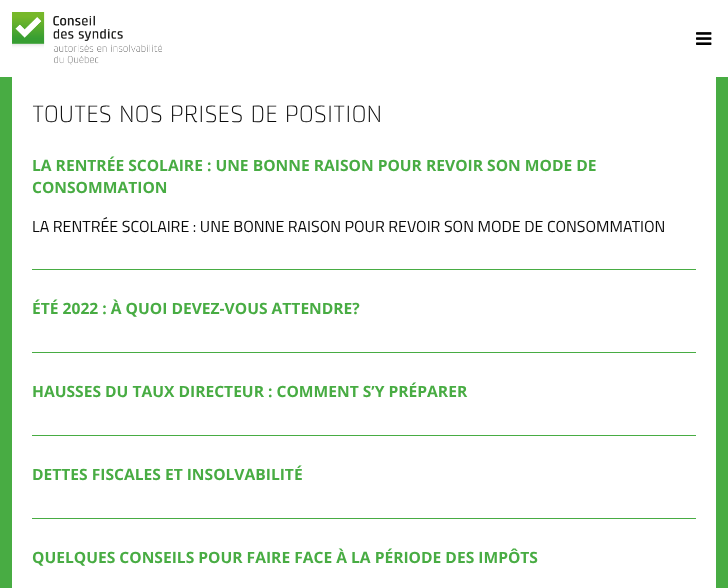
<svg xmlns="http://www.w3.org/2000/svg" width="728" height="588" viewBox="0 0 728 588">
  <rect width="100%" height="100%" fill="#ffffff"/>
  <image x="12" y="12" width="150" height="53" href="img1.png"/>
  <image x="696" y="32" width="16" height="13" href="img2.png"/>
  <rect x="0" y="77" width="728" height="511" fill="#48ac43"/>
  <rect x="12" y="77" width="704" height="511" fill="#ffffff"/>
  <text x="32" y="122" font-family="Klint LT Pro" font-size="24" font-weight="300" fill="#0a0a0a">TOUTES NOS PRISES DE POSITION</text>
  <rect x="32" y="269" width="664" height="1" fill="#48ac43"/>
  <text x="32" y="171" font-family="Open Sans" font-size="15.6" font-weight="bold" fill="#48ac43">LA RENTRÉE SCOLAIRE : UNE BONNE RAISON POUR REVOIR SON MODE DE</text>
  <text x="32" y="193" font-family="Open Sans" font-size="15.6" font-weight="bold" fill="#48ac43">CONSOMMATION</text>
  <text x="32" y="232" font-family="Titillium Web" font-size="16" fill="#0a0a0a">LA RENTRÉE SCOLAIRE : UNE BONNE RAISON POUR REVOIR SON MODE DE CONSOMMATION</text>
  <rect x="32" y="352" width="664" height="1" fill="#48ac43"/>
  <text x="32" y="314" font-family="Open Sans" font-size="15.6" font-weight="bold" fill="#48ac43">ÉTÉ 2022 : À QUOI DEVEZ-VOUS ATTENDRE?</text>
  <rect x="32" y="435" width="664" height="1" fill="#48ac43"/>
  <text x="32" y="397" font-family="Open Sans" font-size="15.6" font-weight="bold" fill="#48ac43">HAUSSES DU TAUX DIRECTEUR : COMMENT S’Y PRÉPARER</text>
  <rect x="32" y="518" width="664" height="1" fill="#48ac43"/>
  <text x="32" y="480" font-family="Open Sans" font-size="15.6" font-weight="bold" fill="#48ac43">DETTES FISCALES ET INSOLVABILITÉ</text>
  <text x="32" y="563" font-family="Open Sans" font-size="15.6" font-weight="bold" fill="#48ac43">QUELQUES CONSEILS POUR FAIRE FACE À LA PÉRIODE DES IMPÔTS</text>
</svg>
